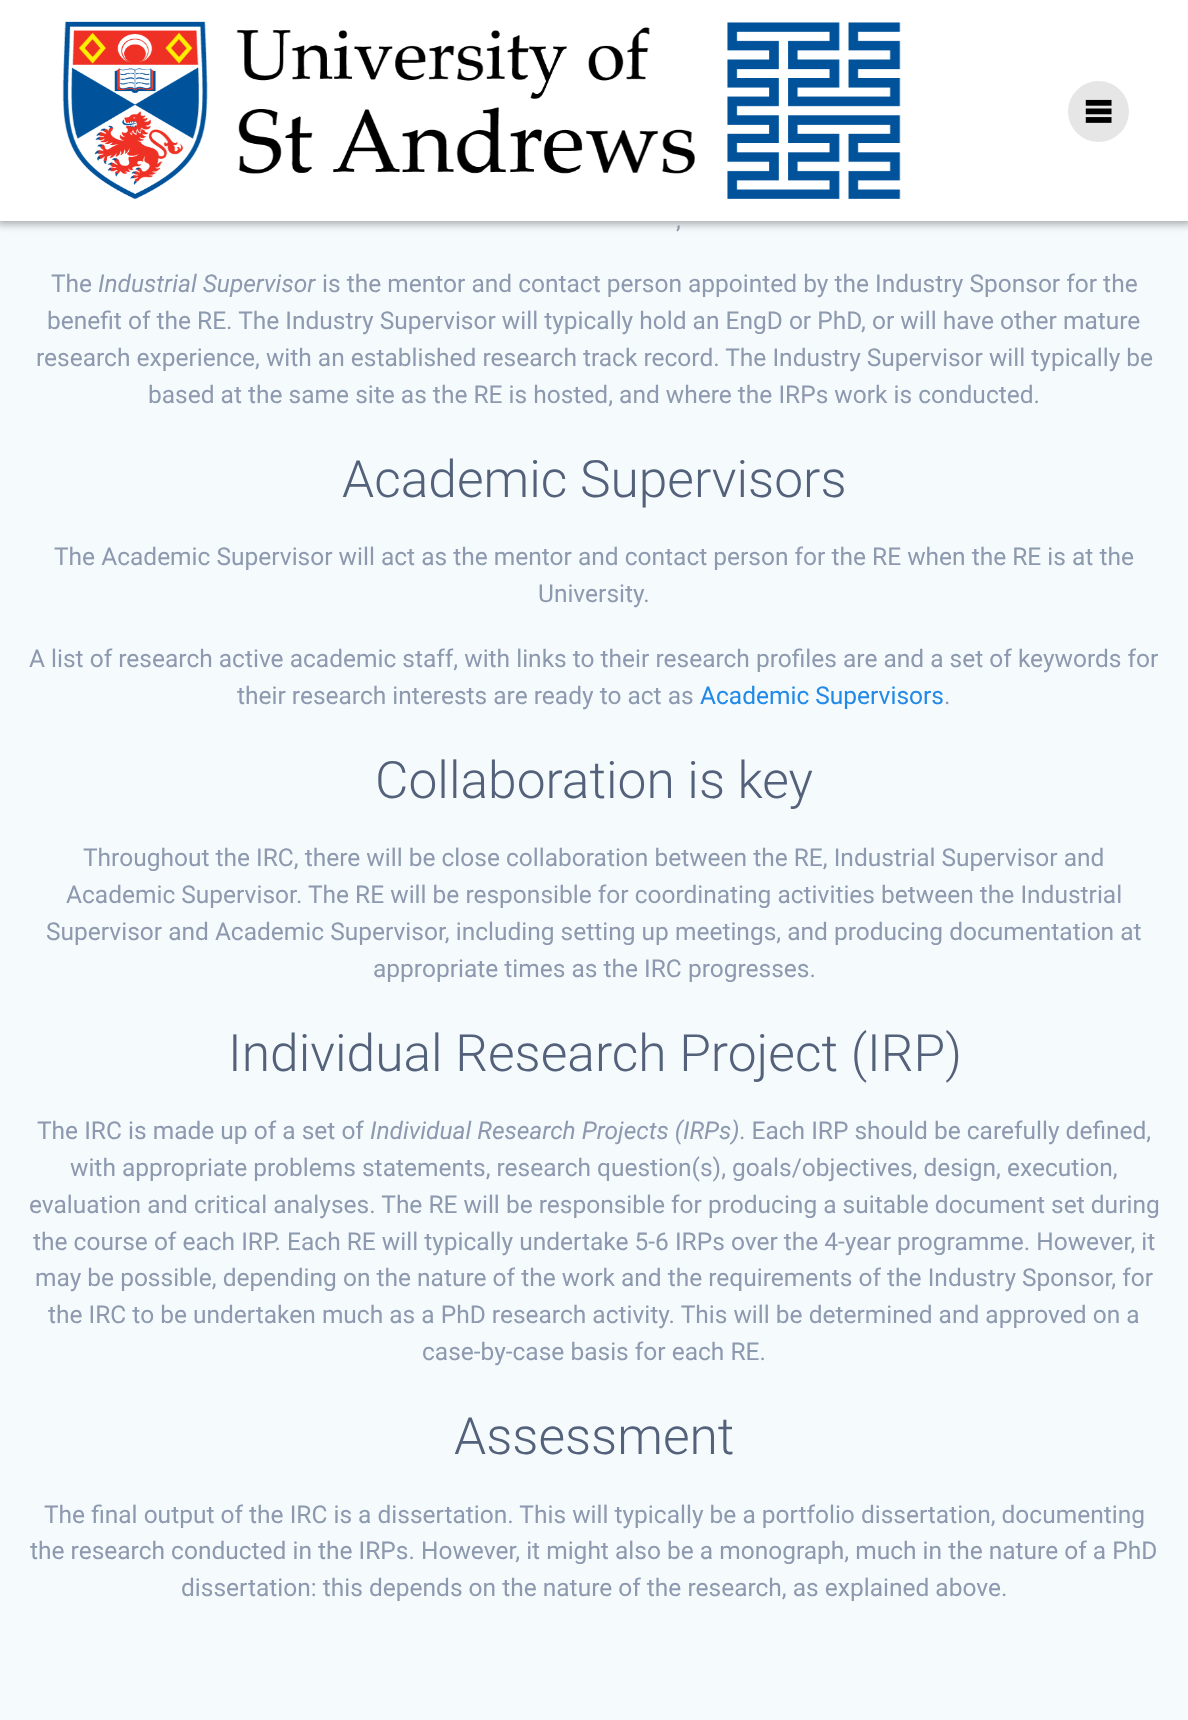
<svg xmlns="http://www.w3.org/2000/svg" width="1188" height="1720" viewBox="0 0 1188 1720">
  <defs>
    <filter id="blur1" x="-50%" y="-200%" width="200%" height="500%"><feGaussianBlur stdDeviation="4.5"/></filter>
  </defs>
  <rect width="100%" height="100%" fill="#f5fafd"/>
  <rect x="-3" y="-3" width="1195" height="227" fill="#000000" fill-opacity="0.33" filter="url(#blur1)"/>
  <rect x="0" y="0" width="1188" height="221" fill="#ffffff"/>
  <image x="62" y="21" width="839" height="178" href="img1.png"/>
  <circle cx="1098.5" cy="111.5" r="30.5" fill="#e6e6e6"/>
  <image x="1085" y="99" width="27" height="24" href="img2.png"/>
  <text x="676" y="228" font-family="Roboto" font-size="24.5" fill="#8d99ae">,</text>
  <text x="51" y="292" font-family="Roboto" font-size="24.5" fill="#8d99ae">The</text>
  <text x="98" y="292" font-family="Roboto" font-size="24.5" font-style="italic" fill="#8d99ae">Industrial Supervisor</text>
  <text x="322" y="292" font-family="Roboto" font-size="24.5" fill="#8d99ae">is the mentor and contact person appointed by the Industry Sponsor for the</text>
  <text x="47" y="329" font-family="Roboto" font-size="24.5" fill="#8d99ae">benefit of the RE. The Industry Supervisor will typically hold an EngD or PhD, or will have other mature</text>
  <text x="36" y="366" font-family="Roboto" font-size="24.5" fill="#8d99ae">research experience, with an established research track record. The Industry Supervisor will typically be</text>
  <text x="148" y="403" font-family="Roboto" font-size="24.5" fill="#8d99ae">based at the same site as the RE is hosted, and where the IRPs work is conducted.</text>
  <text x="342" y="497" font-family="Roboto" font-size="51.5" font-weight="300" fill="#54617a">Academic Supervisors</text>
  <text x="54" y="565" font-family="Roboto" font-size="24.5" fill="#8d99ae">The Academic Supervisor will act as the mentor and contact person for the RE when the RE is at the</text>
  <text x="538" y="602" font-family="Roboto" font-size="24.5" fill="#8d99ae">University.</text>
  <text x="29" y="667" font-family="Roboto" font-size="24.5" fill="#8d99ae">A list of research active academic staff, with links to their research profiles are and a set of keywords for</text>
  <text x="237" y="704" font-family="Roboto" font-size="24.5" fill="#8d99ae">their research interests are ready to act as</text>
  <text x="700" y="704" font-family="Roboto" font-size="24.5" fill="#228ae6">Academic Supervisors</text>
  <text x="944" y="704" font-family="Roboto" font-size="24.5" fill="#8d99ae">.</text>
  <text x="375" y="798" font-family="Roboto" font-size="51.5" font-weight="300" fill="#54617a">Collaboration is key</text>
  <text x="83" y="866" font-family="Roboto" font-size="24.5" fill="#8d99ae">Throughout the IRC, there will be close collaboration between the RE, Industrial Supervisor and</text>
  <text x="66" y="903" font-family="Roboto" font-size="24.5" fill="#8d99ae">Academic Supervisor. The RE will be responsible for coordinating activities between the Industrial</text>
  <text x="46" y="940" font-family="Roboto" font-size="24.5" fill="#8d99ae">Supervisor and Academic Supervisor, including setting up meetings, and producing documentation at</text>
  <text x="373" y="977" font-family="Roboto" font-size="24.5" fill="#8d99ae">appropriate times as the IRC progresses.</text>
  <text x="228" y="1071" font-family="Roboto" font-size="51.5" font-weight="300" fill="#54617a">Individual Research Project (IRP)</text>
  <text x="37" y="1139" font-family="Roboto" font-size="24.5" fill="#8d99ae">The IRC is made up of a set of</text>
  <text x="370" y="1139" font-family="Roboto" font-size="24.5" font-style="italic" fill="#8d99ae">Individual Research Projects (IRPs)</text>
  <text x="739" y="1139" font-family="Roboto" font-size="24.5" fill="#8d99ae">. Each IRP should be carefully defined,</text>
  <text x="70" y="1176" font-family="Roboto" font-size="24.5" fill="#8d99ae">with appropriate problems statements, research question(s), goals/objectives, design, execution,</text>
  <text x="29" y="1213" font-family="Roboto" font-size="24.5" fill="#8d99ae">evaluation and critical analyses. The RE will be responsible for producing a suitable document set during</text>
  <text x="33" y="1250" font-family="Roboto" font-size="24.5" fill="#8d99ae">the course of each IRP. Each RE will typically undertake 5-6 IRPs over the 4-year programme. However, it</text>
  <text x="35" y="1286" font-family="Roboto" font-size="24.5" fill="#8d99ae">may be possible, depending on the nature of the work and the requirements of the Industry Sponsor, for</text>
  <text x="48" y="1323" font-family="Roboto" font-size="24.5" fill="#8d99ae">the IRC to be undertaken much as a PhD research activity. This will be determined and approved on a</text>
  <text x="422" y="1360" font-family="Roboto" font-size="24.5" fill="#8d99ae">case-by-case basis for each RE.</text>
  <text x="454" y="1454" font-family="Roboto" font-size="51.5" font-weight="300" fill="#54617a">Assessment</text>
  <text x="44" y="1523" font-family="Roboto" font-size="24.5" fill="#8d99ae">The final output of the IRC is a dissertation. This will typically be a portfolio dissertation, documenting</text>
  <text x="30" y="1559" font-family="Roboto" font-size="24.5" fill="#8d99ae">the research conducted in the IRPs. However, it might also be a monograph, much in the nature of a PhD</text>
  <text x="181" y="1596" font-family="Roboto" font-size="24.5" fill="#8d99ae">dissertation: this depends on the nature of the research, as explained above.</text>
</svg>
